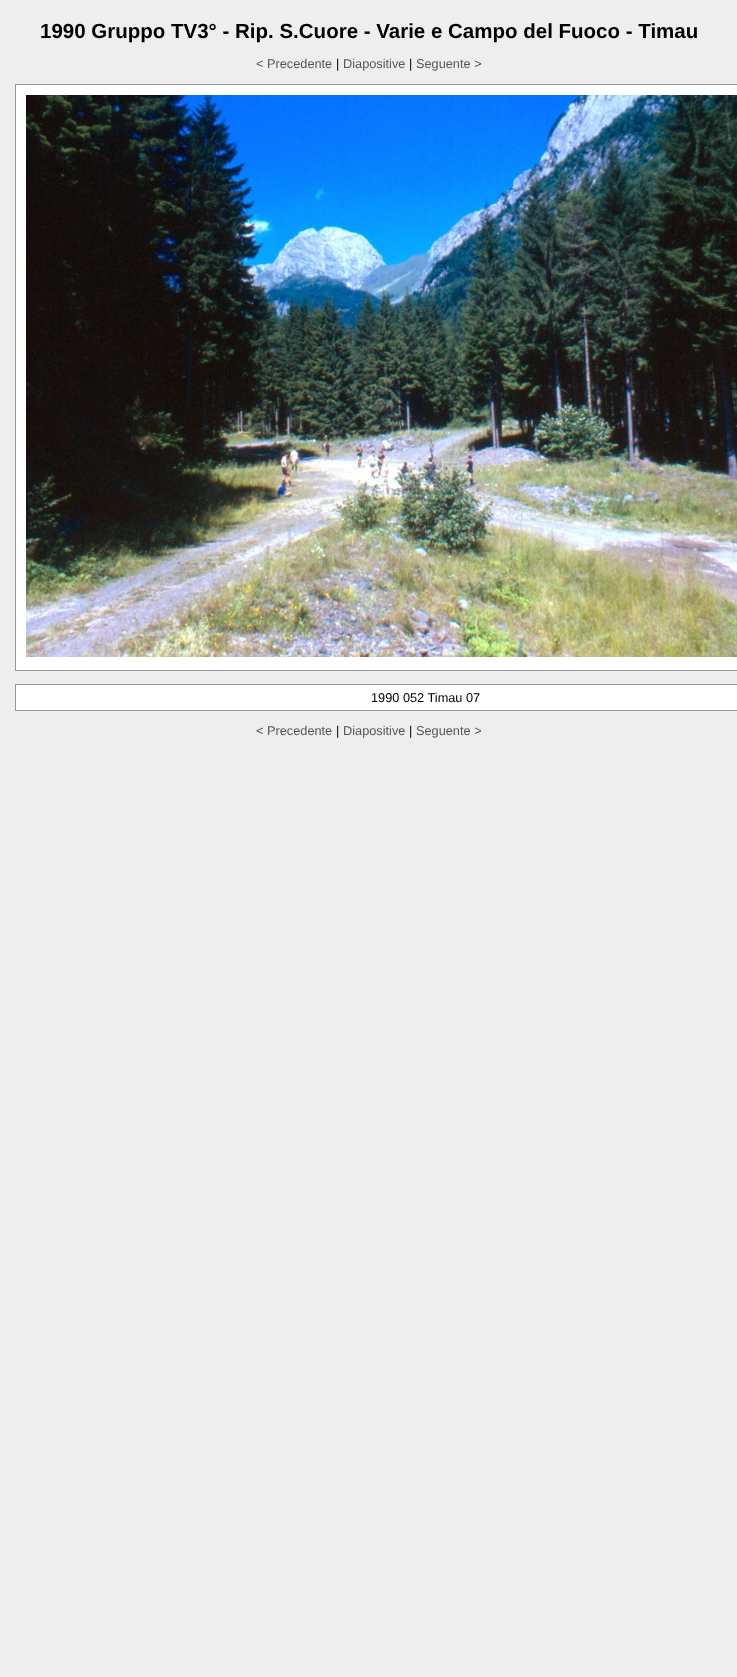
<svg xmlns="http://www.w3.org/2000/svg" width="737" height="1677" viewBox="0 0 737 1677">
  <rect width="100%" height="100%" fill="#eeeeee"/>
  <text x="40" y="38" font-family="Liberation Sans" font-size="20.5" font-weight="bold" fill="#000000">1990 Gruppo TV3° - Rip. S.Cuore - Varie e Campo del Fuoco - Timau</text>
  <text x="256" y="68" font-family="Liberation Sans" font-size="12.75" fill="#555555">&lt; Precedente</text>
  <text x="336" y="68" font-family="Liberation Sans" font-size="12.75" fill="#000000">|</text>
  <text x="343" y="68" font-family="Liberation Sans" font-size="12.75" fill="#555555">Diapositive</text>
  <text x="409" y="68" font-family="Liberation Sans" font-size="12.75" fill="#000000">|</text>
  <text x="416" y="68" font-family="Liberation Sans" font-size="12.75" fill="#555555">Seguente &gt;</text>
  <rect x="15.5" y="84.5" width="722" height="586" fill="#ffffff" stroke="#999999"/>
  <image x="26" y="95" width="711" height="562" href="img1.png"/>
  <rect x="15.5" y="684.5" width="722" height="26" fill="#ffffff" stroke="#999999"/>
  <text x="371" y="702" font-family="Liberation Sans" font-size="12.75" fill="#000000">1990 052 Timau 07</text>
  <text x="256" y="735" font-family="Liberation Sans" font-size="12.75" fill="#555555">&lt; Precedente</text>
  <text x="336" y="735" font-family="Liberation Sans" font-size="12.75" fill="#000000">|</text>
  <text x="343" y="735" font-family="Liberation Sans" font-size="12.75" fill="#555555">Diapositive</text>
  <text x="409" y="735" font-family="Liberation Sans" font-size="12.75" fill="#000000">|</text>
  <text x="416" y="735" font-family="Liberation Sans" font-size="12.75" fill="#555555">Seguente &gt;</text>
</svg>
